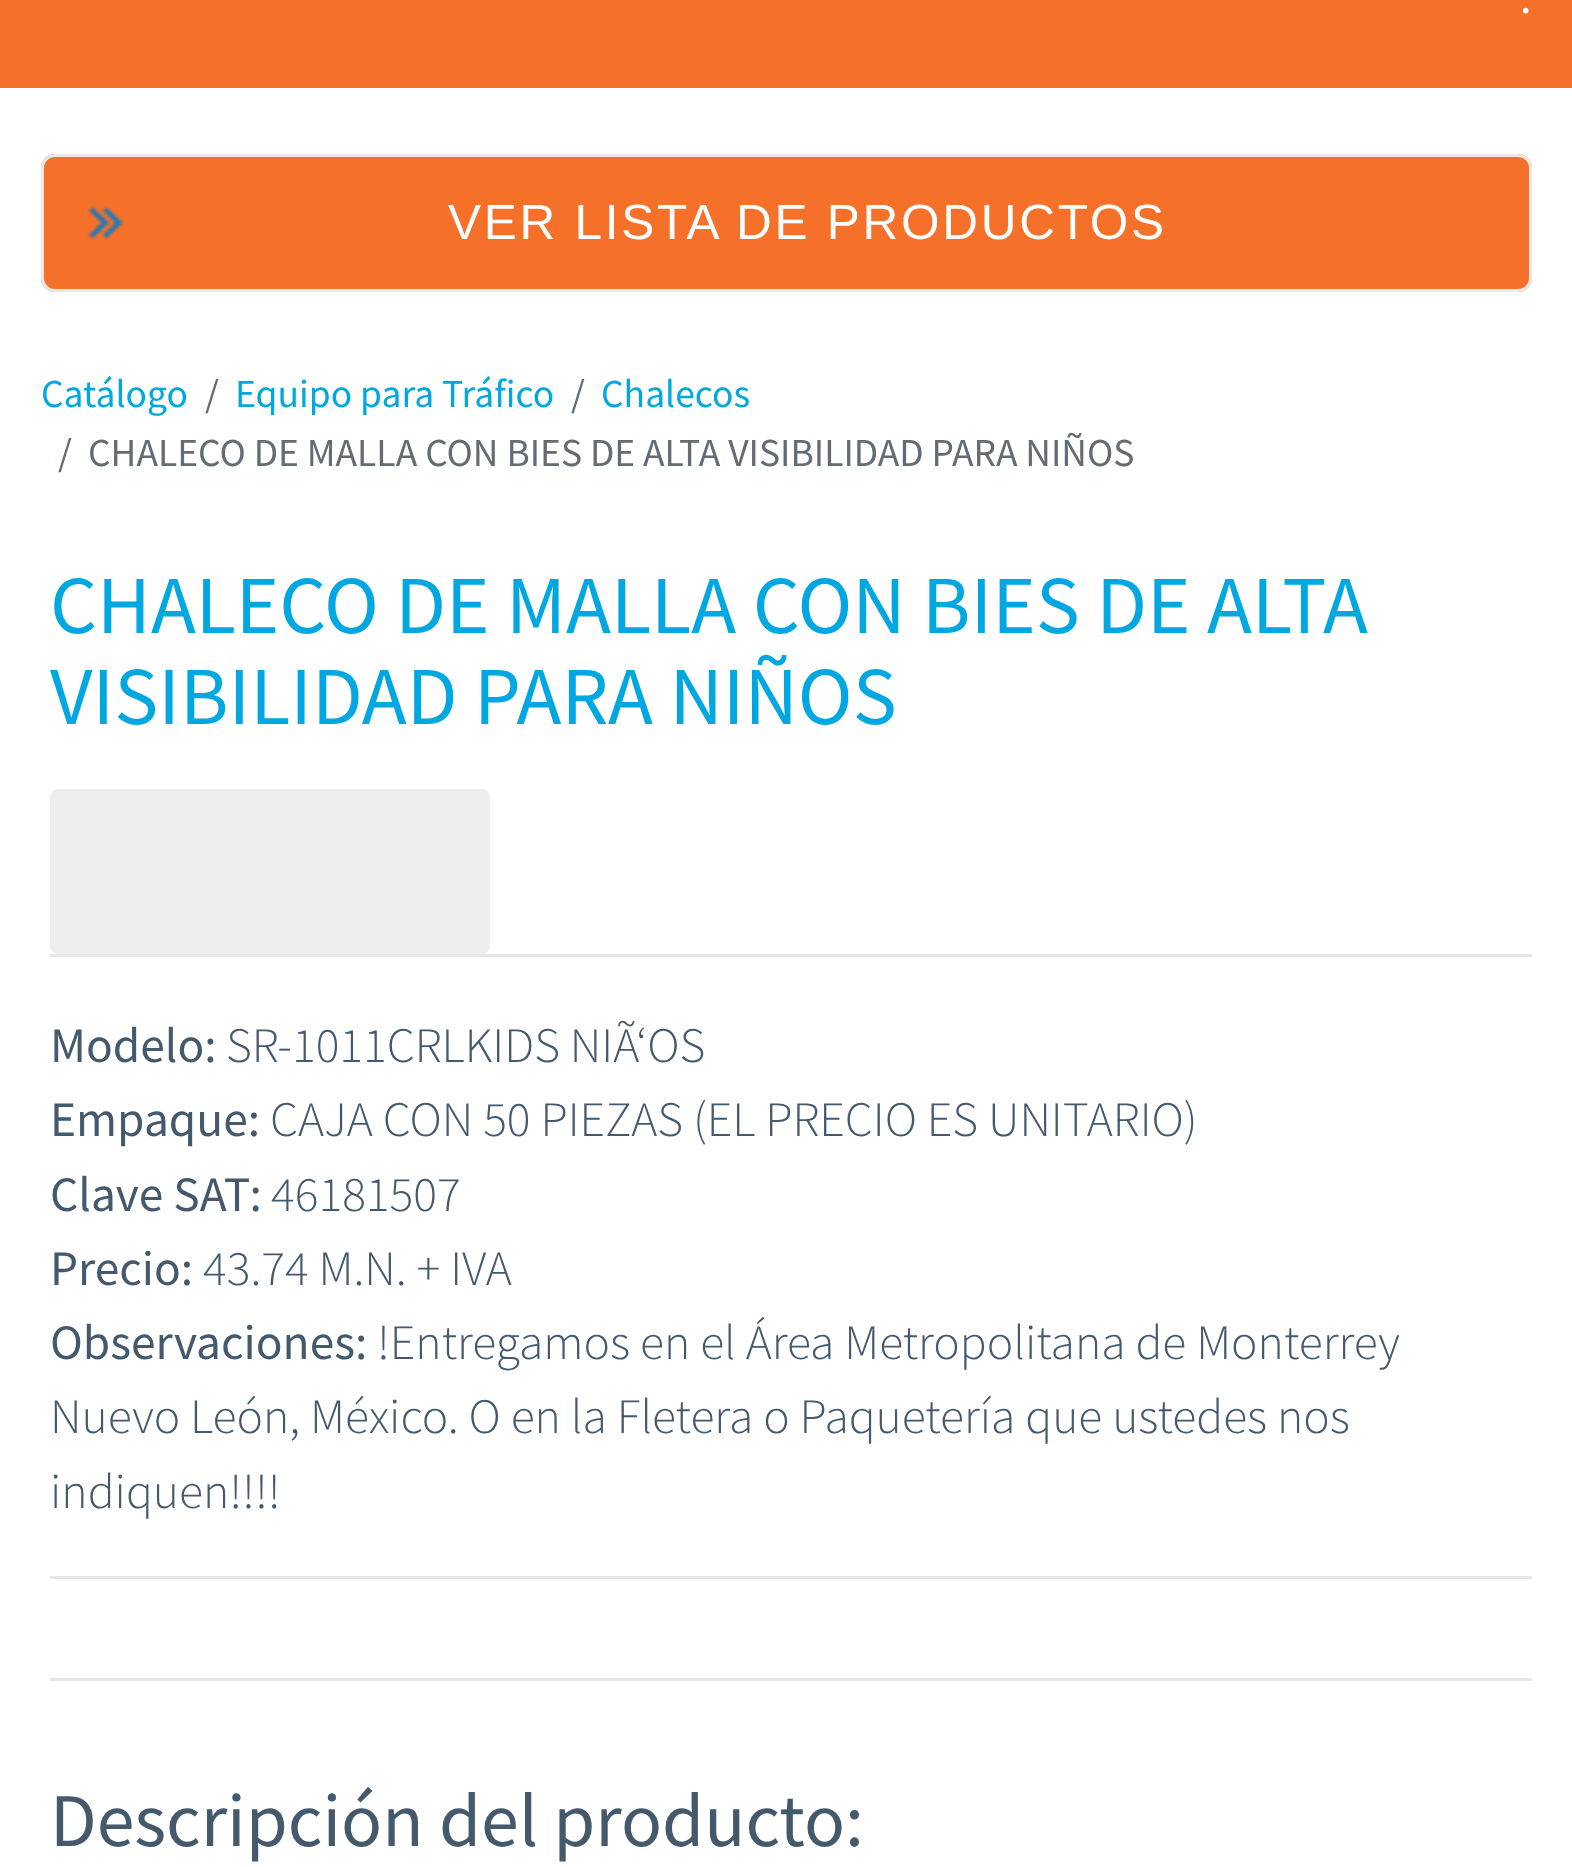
<svg xmlns="http://www.w3.org/2000/svg" width="1572" height="1867" viewBox="0 0 1572 1867">
  <rect width="100%" height="100%" fill="#ffffff"/>
  <rect x="0" y="0" width="1572" height="88" fill="#f57029"/>
  <text x="1520" y="13" font-family="Source Sans Pro" font-size="46" fill="#ffffff">.</text>
  <rect x="41" y="154" width="1491" height="138" rx="14" fill="#f57029"/>
  <image x="87" y="205" width="37" height="35" href="img1.png"/>
  <rect x="42.5" y="155.5" width="1488" height="135" rx="12.5" fill="none" stroke="#e9e9e9" stroke-width="3"/>
  <text x="448" y="239" font-family="Liberation Sans" font-size="49.5" letter-spacing="2.75" fill="#ffffff">VER LISTA DE PRODUCTOS</text>
  <text x="41" y="407" font-family="Source Sans Pro" font-size="39.6" fill="#00a7e0">Catálogo</text>
  <text x="205" y="407" font-family="Source Sans Pro" font-size="39.6" fill="#636c72">/</text>
  <text x="235" y="407" font-family="Source Sans Pro" font-size="39.6" fill="#00a7e0">Equipo para Tráfico</text>
  <text x="571" y="407" font-family="Source Sans Pro" font-size="39.6" fill="#636c72">/</text>
  <text x="601" y="407" font-family="Source Sans Pro" font-size="39.6" fill="#00a7e0">Chalecos</text>
  <text x="58" y="466" font-family="Source Sans Pro" font-size="39.6" fill="#636c72">/</text>
  <text x="88" y="466" font-family="Source Sans Pro" font-size="39.6" fill="#636c72">CHALECO DE MALLA CON BIES DE ALTA VISIBILIDAD PARA NIÑOS</text>
  <text x="50" y="633" font-family="Source Sans Pro" font-size="82.5" fill="#00a7e0">CHALECO DE MALLA CON BIES DE ALTA</text>
  <text x="50" y="724" font-family="Source Sans Pro" font-size="82.5" fill="#00a7e0">VISIBILIDAD PARA NIÑOS</text>
  <rect x="57" y="796" width="426" height="151" rx="1" fill="#eeeeee" stroke="#eeeeee" stroke-width="14"/>
  <rect x="50" y="954" width="1482" height="3" fill="#e6e6e6"/>
  <text x="50" y="1062" font-family="Source Sans Pro" font-size="49.5" fill="#45596d">Modelo:</text>
  <text x="226" y="1062" font-family="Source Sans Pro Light" font-size="49.5" font-weight="300" fill="#45596d">SR-1011CRLKIDS NIÃ‘OS</text>
  <text x="50" y="1136" font-family="Source Sans Pro" font-size="49.5" fill="#45596d">Empaque:</text>
  <text x="270" y="1136" font-family="Source Sans Pro Light" font-size="49.5" font-weight="300" fill="#45596d">CAJA CON 50 PIEZAS (EL PRECIO ES UNITARIO)</text>
  <text x="50" y="1211" font-family="Source Sans Pro" font-size="49.5" fill="#45596d">Clave SAT:</text>
  <text x="271" y="1211" font-family="Source Sans Pro Light" font-size="49.5" font-weight="300" fill="#45596d">46181507</text>
  <text x="50" y="1285" font-family="Source Sans Pro" font-size="49.5" fill="#45596d">Precio:</text>
  <text x="203" y="1285" font-family="Source Sans Pro Light" font-size="49.5" font-weight="300" fill="#45596d">43.74 M.N. + IVA</text>
  <text x="50" y="1359" font-family="Source Sans Pro" font-size="49.5" fill="#45596d">Observaciones:</text>
  <text x="377" y="1359" font-family="Source Sans Pro Light" font-size="49.5" font-weight="300" fill="#45596d">!Entregamos en el Área Metropolitana de Monterrey</text>
  <text x="50" y="1433" font-family="Source Sans Pro Light" font-size="49.5" font-weight="300" fill="#45596d">Nuevo León, México. O en la Fletera o Paquetería que ustedes nos</text>
  <text x="50" y="1508" font-family="Source Sans Pro Light" font-size="49.5" font-weight="300" fill="#45596d">indiquen!!!!</text>
  <rect x="50" y="1576" width="1482" height="3" fill="#e6e6e6"/>
  <rect x="50" y="1678" width="1482" height="3" fill="#e6e6e6"/>
  <text x="50" y="1846" font-family="Source Sans Pro" font-size="75.9" fill="#45596d">Descripción del producto:</text>
</svg>
